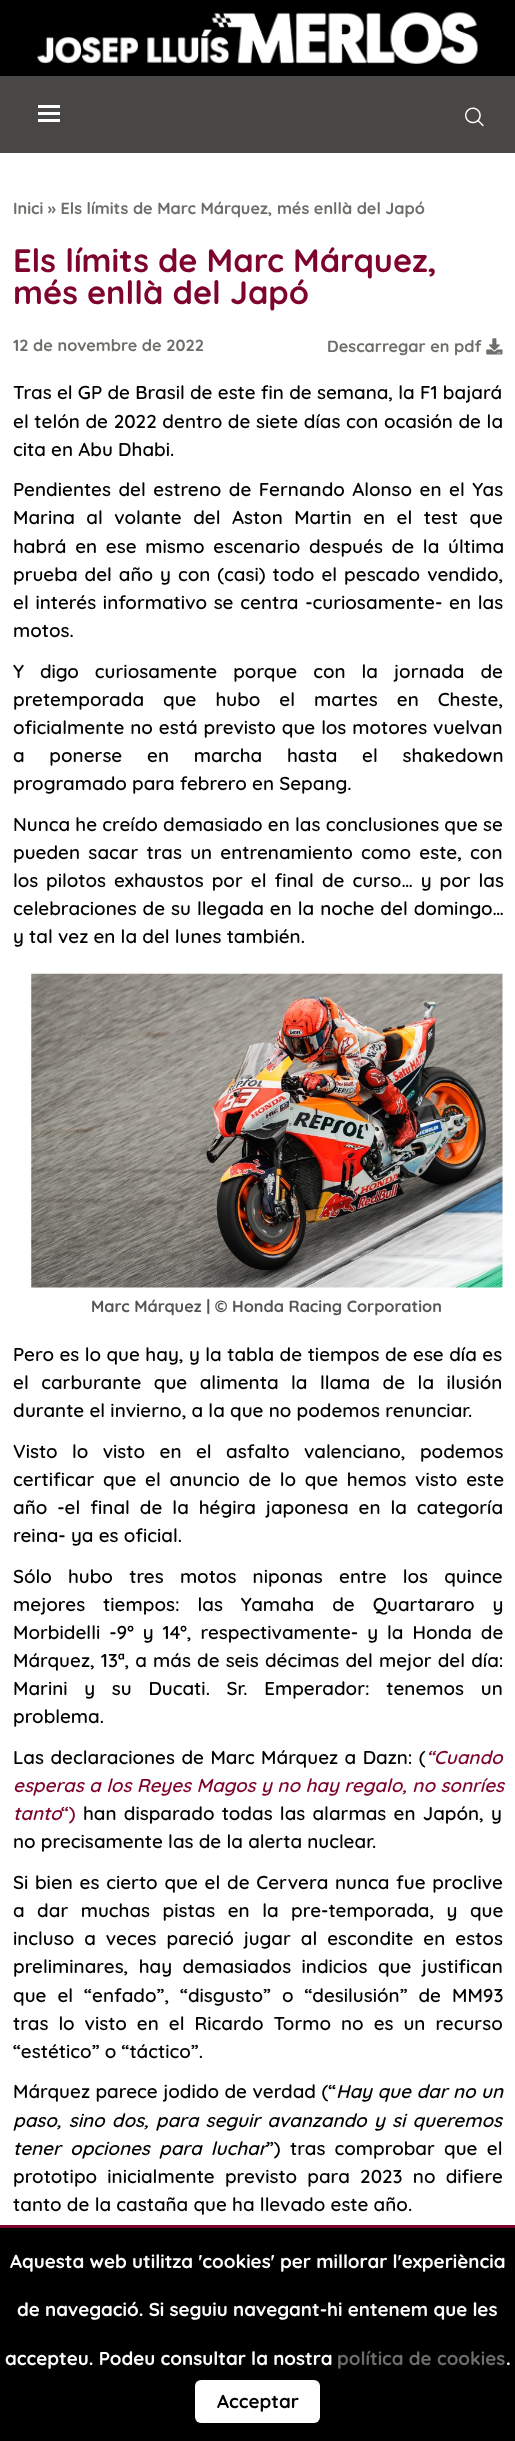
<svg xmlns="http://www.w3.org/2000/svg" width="515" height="2441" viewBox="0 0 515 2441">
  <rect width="100%" height="100%" fill="#ffffff"/>
  <rect x="0" y="0" width="515" height="76" fill="#000000"/>
  <image x="37" y="12" width="441" height="52" href="img1.png"/>
  <rect x="0" y="76" width="515" height="77" fill="#484745"/>
  <rect x="38" y="105" width="22" height="3" fill="#ffffff"/>
  <rect x="38" y="112" width="22" height="3" fill="#ffffff"/>
  <rect x="38" y="119" width="22" height="3" fill="#ffffff"/>
  <image x="465" y="107" width="19" height="20" href="img2.png"/>
  <text x="13" y="214" font-family="Quicksand" font-size="16.25" font-weight="bold" fill="#6e6d69">Inici » Els límits de Marc Márquez, més enllà del Japó</text>
  <text x="13" y="272" font-family="Quicksand" font-size="32.5" font-weight="bold" fill="#7e042b">Els límits de Marc Márquez,</text>
  <text x="13" y="304" font-family="Quicksand" font-size="32.5" font-weight="bold" fill="#7e042b">més enllà del Japó</text>
  <text x="13" y="351" font-family="Quicksand" font-size="16.25" font-weight="bold" fill="#6e6d69">12 de novembre de 2022</text>
  <text x="327" y="352" font-family="Quicksand" font-size="16.25" font-weight="bold" fill="#6e6d69">Descarregar en pdf</text>
  <image x="486" y="338" width="17" height="17" href="img3.png"/>
  <text x="13" y="399" font-family="Quicksand" font-size="18.75" font-weight="600" fill="#000000">Tras el GP de Brasil de este fin de semana, la F1 bajará</text>
  <text x="13" y="428" word-spacing="0.4" font-family="Quicksand" font-size="18.75" font-weight="600" fill="#000000">el telón de 2022 dentro de siete días con ocasión de la</text>
  <text x="13" y="456" font-family="Quicksand" font-size="18.75" font-weight="600" fill="#000000">cita en Abu Dhabi.</text>
  <text x="13" y="496" word-spacing="2.25" font-family="Quicksand" font-size="18.75" font-weight="600" fill="#000000">Pendientes del estreno de Fernando Alonso en el Yas</text>
  <text x="13" y="524" word-spacing="6.25" font-family="Quicksand" font-size="18.75" font-weight="600" fill="#000000">Marina al volante del Aston Martin en el test que</text>
  <text x="13" y="553" word-spacing="3.5" font-family="Quicksand" font-size="18.75" font-weight="600" fill="#000000">habrá en ese mismo escenario después de la última</text>
  <text x="13" y="581" word-spacing="1.75" font-family="Quicksand" font-size="18.75" font-weight="600" fill="#000000">prueba del año y con (casi) todo el pescado vendido,</text>
  <text x="13" y="609" word-spacing="1.5" font-family="Quicksand" font-size="18.75" font-weight="600" fill="#000000">el interés informativo se centra -curiosamente- en las</text>
  <text x="13" y="637" font-family="Quicksand" font-size="18.75" font-weight="600" fill="#000000">motos.</text>
  <text x="13" y="678" word-spacing="10.75" font-family="Quicksand" font-size="18.75" font-weight="600" fill="#000000">Y digo curiosamente porque con la jornada de</text>
  <text x="13" y="706" word-spacing="13.75" font-family="Quicksand" font-size="18.75" font-weight="600" fill="#000000">pretemporada que hubo el martes en Cheste,</text>
  <text x="13" y="734" word-spacing="0.75" font-family="Quicksand" font-size="18.75" font-weight="600" fill="#000000">oficialmente no está previsto que los motores vuelvan</text>
  <text x="13" y="762" word-spacing="19.5" font-family="Quicksand" font-size="18.75" font-weight="600" fill="#000000">a ponerse en marcha hasta el shakedown</text>
  <text x="13" y="790" font-family="Quicksand" font-size="18.75" font-weight="600" fill="#000000">programado para febrero en Sepang.</text>
  <text x="13" y="831" font-family="Quicksand" font-size="18.75" font-weight="600" fill="#000000">Nunca he creído demasiado en las conclusiones que se</text>
  <text x="13" y="859" word-spacing="3" font-family="Quicksand" font-size="18.75" font-weight="600" fill="#000000">pueden sacar tras un entrenamiento como este, con</text>
  <text x="13" y="887" word-spacing="2.75" font-family="Quicksand" font-size="18.75" font-weight="600" fill="#000000">los pilotos exhaustos por el final de curso… y por las</text>
  <text x="13" y="915" word-spacing="0.75" font-family="Quicksand" font-size="18.75" font-weight="600" fill="#000000">celebraciones de su llegada en la noche del domingo…</text>
  <text x="13" y="943" font-family="Quicksand" font-size="18.75" font-weight="600" fill="#000000">y tal vez en la del lunes también.</text>
  <image x="31" y="973" width="472" height="315" href="img4.png"/>
  <text x="91" y="1312" font-family="Quicksand" font-size="16.25" font-weight="bold" fill="#555555">Marc Márquez | © Honda Racing Corporation</text>
  <text x="13" y="1361" word-spacing="0.25" font-family="Quicksand" font-size="18.75" font-weight="600" fill="#000000">Pero es lo que hay, y la tabla de tiempos de ese día es</text>
  <text x="13" y="1389" word-spacing="7.25" font-family="Quicksand" font-size="18.75" font-weight="600" fill="#000000">el carburante que alimenta la llama de la ilusión</text>
  <text x="13" y="1417" font-family="Quicksand" font-size="18.75" font-weight="600" fill="#000000">durante el invierno, a la que no podemos renunciar.</text>
  <text x="13" y="1458" word-spacing="9.25" font-family="Quicksand" font-size="18.75" font-weight="600" fill="#000000">Visto lo visto en el asfalto valenciano, podemos</text>
  <text x="13" y="1486" word-spacing="3.5" font-family="Quicksand" font-size="18.75" font-weight="600" fill="#000000">certificar que el anuncio de lo que hemos visto este</text>
  <text x="13" y="1514" word-spacing="4.75" font-family="Quicksand" font-size="18.75" font-weight="600" fill="#000000">año -el final de la hégira japonesa en la categoría</text>
  <text x="13" y="1542" font-family="Quicksand" font-size="18.75" font-weight="600" fill="#000000">reina- ya es oficial.</text>
  <text x="13" y="1583" word-spacing="11" font-family="Quicksand" font-size="18.75" font-weight="600" fill="#000000">Sólo hubo tres motos niponas entre los quince</text>
  <text x="13" y="1611" word-spacing="12.75" font-family="Quicksand" font-size="18.75" font-weight="600" fill="#000000">mejores tiempos: las Yamaha de Quartararo y</text>
  <text x="13" y="1639" word-spacing="3.75" font-family="Quicksand" font-size="18.75" font-weight="600" fill="#000000">Morbidelli -9º y 14º, respectivamente- y la Honda de</text>
  <text x="13" y="1667" word-spacing="0.9" font-family="Quicksand" font-size="18.75" font-weight="600" fill="#000000">Márquez, 13ª, a más de seis décimas del mejor del día:</text>
  <text x="13" y="1695" word-spacing="11.5" font-family="Quicksand" font-size="18.75" font-weight="600" fill="#000000">Marini y su Ducati. Sr. Emperador: tenemos un</text>
  <text x="13" y="1723" font-family="Quicksand" font-size="18.75" font-weight="600" fill="#000000">problema.</text>
  <text x="13" y="1764" word-spacing="1.25" font-family="Quicksand" font-size="18.75" font-weight="600" fill="#000000">Las declaraciones de Marc Márquez a Dazn: (</text>
  <text x="426" y="1764" font-family="Quicksand" font-size="18.75" font-weight="600" font-style="italic" fill="#7e042b">“Cuando</text>
  <text x="13" y="1792" word-spacing="0.25" font-family="Quicksand" font-size="18.75" font-weight="600" font-style="italic" fill="#7e042b">esperas a los Reyes Magos y no hay regalo, no sonríes</text>
  <text x="13" y="1820" font-family="Quicksand" font-size="18.75" font-weight="600" font-style="italic" fill="#7e042b">tanto</text>
  <text x="61" y="1820" font-family="Quicksand" font-size="18.75" font-weight="600" fill="#7e042b">“)</text>
  <text x="83" y="1820" word-spacing="2" font-family="Quicksand" font-size="18.75" font-weight="600" fill="#000000">han disparado todas las alarmas en Japón, y</text>
  <text x="13" y="1848" font-family="Quicksand" font-size="18.75" font-weight="600" fill="#000000">no precisamente las de la alerta nuclear.</text>
  <text x="13" y="1889" word-spacing="1.5" font-family="Quicksand" font-size="18.75" font-weight="600" fill="#000000">Si bien es cierto que el de Cervera nunca fue proclive</text>
  <text x="13" y="1917" word-spacing="7.25" font-family="Quicksand" font-size="18.75" font-weight="600" fill="#000000">a dar muchas pistas en la pre-temporada, y que</text>
  <text x="13" y="1945" word-spacing="4.75" font-family="Quicksand" font-size="18.75" font-weight="600" fill="#000000">incluso a veces pareció jugar al escondite en estos</text>
  <text x="13" y="1973" word-spacing="5.25" font-family="Quicksand" font-size="18.75" font-weight="600" fill="#000000">preliminares, hay demasiados indicios que justifican</text>
  <text x="13" y="2002" word-spacing="5.75" font-family="Quicksand" font-size="18.75" font-weight="600" fill="#000000">que el “enfado”, “disgusto” o “desilusión” de MM93</text>
  <text x="13" y="2030" word-spacing="4.75" font-family="Quicksand" font-size="18.75" font-weight="600" fill="#000000">tras lo visto en el Ricardo Tormo no es un recurso</text>
  <text x="13" y="2058" font-family="Quicksand" font-size="18.75" font-weight="600" fill="#000000">“estético” o “táctico”.</text>
  <text x="13" y="2098" word-spacing="0.25" font-family="Quicksand" font-size="18.75" font-weight="600" fill="#000000">Márquez parece jodido de verdad (“</text>
  <text x="336" y="2098" word-spacing="0.25" font-family="Quicksand" font-size="18.75" font-weight="600" font-style="italic" fill="#000000">Hay que dar no un</text>
  <text x="13" y="2127" word-spacing="2" font-family="Quicksand" font-size="18.75" font-weight="600" font-style="italic" fill="#000000">paso, sino dos, para seguir avanzando y si queremos</text>
  <text x="13" y="2155" word-spacing="4" font-family="Quicksand" font-size="18.75" font-weight="600" font-style="italic" fill="#000000">tener opciones para luchar</text>
  <text x="266" y="2155" word-spacing="4" font-family="Quicksand" font-size="18.75" font-weight="600" fill="#000000">”) tras comprobar que el</text>
  <text x="13" y="2183" word-spacing="5" font-family="Quicksand" font-size="18.75" font-weight="600" fill="#000000">prototipo inicialmente previsto para 2023 no difiere</text>
  <text x="13" y="2211" font-family="Quicksand" font-size="18.75" font-weight="600" fill="#000000">tanto de la castaña que ha llevado este año.</text>
  <rect x="0" y="2228" width="515" height="213" fill="#000000"/>
  <rect x="0" y="2225" width="515" height="3" fill="#7e042b"/>
  <text x="10" y="2268" font-family="Quicksand" font-size="18.75" font-weight="bold" fill="#ffffff">Aquesta web utilitza 'cookies' per millorar l'experiència</text>
  <text x="17" y="2316" font-family="Quicksand" font-size="18.75" font-weight="bold" fill="#ffffff">de navegació. Si seguiu navegant-hi entenem que les</text>
  <text x="5" y="2365" font-family="Quicksand" font-size="18.75" font-weight="bold" fill="#ffffff">accepteu. Podeu consultar la nostra</text>
  <text x="337" y="2365" font-family="Quicksand" font-size="18.75" font-weight="bold" fill="#6e6d69">política de cookies</text>
  <text x="506" y="2365" font-family="Quicksand" font-size="18.75" font-weight="bold" fill="#ffffff">.</text>
  <rect x="195" y="2380" width="125" height="43" rx="6" fill="#ffffff"/>
  <text x="217" y="2408" font-family="Quicksand" font-size="18.75" font-weight="bold" fill="#000000">Acceptar</text>
</svg>
